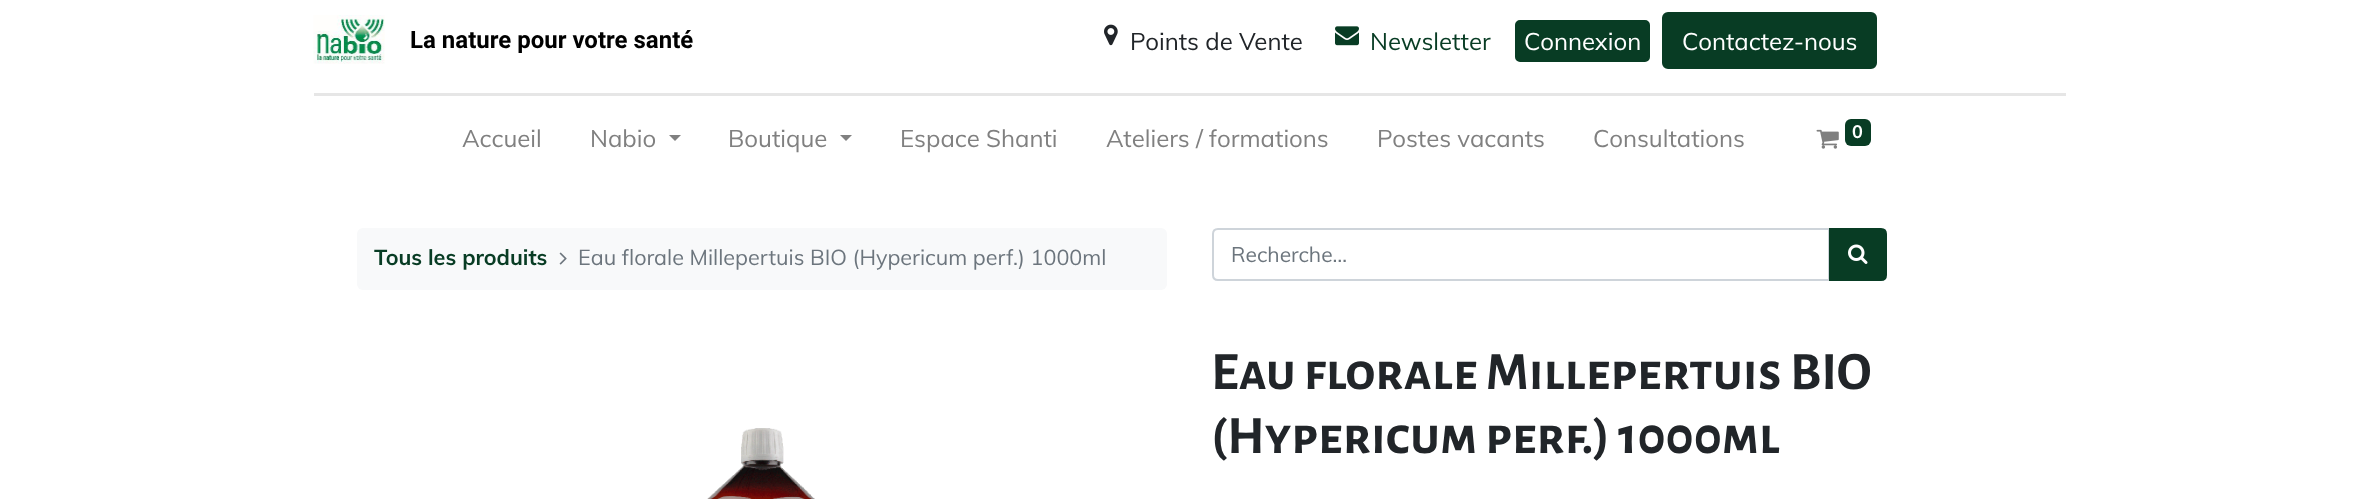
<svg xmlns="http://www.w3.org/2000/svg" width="2377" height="499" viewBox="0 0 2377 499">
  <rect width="100%" height="100%" fill="#ffffff"/>
  <rect x="314" y="93" width="1752" height="3" fill="#e6e6e6"/>
  <image x="313" y="15" width="72" height="49" href="img1.png"/>
  <text x="410" y="48" font-family="Roboto" font-size="24" font-weight="bold" fill="#000000">La nature pour votre santé</text>
  <image x="1104" y="24" width="14" height="22" href="img2.png"/>
  <text x="1130" y="50" font-family="Muli" font-size="24" fill="#212529">Points de Vente</text>
  <image x="1335" y="26" width="24" height="20" href="img3.png"/>
  <text x="1370" y="50" font-family="Muli" font-size="24" fill="#083c24">Newsletter</text>
  <rect x="1516" y="21" width="133" height="40" rx="4" fill="#083c24" stroke="#083c24" stroke-width="2"/>
  <text x="1524" y="50" font-family="Muli" font-size="24" fill="#ffffff">Connexion</text>
  <rect x="1663" y="13" width="213" height="55" rx="5" fill="#083c24" stroke="#083c24" stroke-width="2"/>
  <text x="1682" y="50" font-family="Muli" font-size="24" fill="#ffffff">Contactez-nous</text>
  <text x="462" y="147" font-family="Muli" font-size="24" fill="#808080">Accueil</text>
  <text x="590" y="147" font-family="Muli" font-size="24" fill="#808080">Nabio</text>
  <path d="M669 135H681L675 141Z" fill="#808080"/>
  <text x="728" y="147" font-family="Muli" font-size="24" fill="#808080">Boutique</text>
  <path d="M840 135H852L846 141Z" fill="#808080"/>
  <text x="900" y="147" font-family="Muli" font-size="24" fill="#808080">Espace Shanti</text>
  <text x="1106" y="147" font-family="Muli" font-size="24" fill="#808080">Ateliers / formations</text>
  <text x="1377" y="147" font-family="Muli" font-size="24" fill="#808080">Postes vacants</text>
  <text x="1593" y="147" font-family="Muli" font-size="24" fill="#808080">Consultations</text>
  <image x="1816" y="129" width="23" height="20" href="img4.png"/>
  <rect x="1845" y="119" width="26" height="27" rx="6" fill="#083c24"/>
  <text x="1852" y="138" font-family="Muli" font-size="18" font-weight="bold" fill="#ffffff">0</text>
  <rect x="357" y="228" width="810" height="62" rx="6" fill="#f8f9fa"/>
  <text x="374" y="265" font-family="Muli" font-size="21.6" font-weight="bold" fill="#083c24">Tous les produits</text>
  <image x="559" y="252" width="8" height="13" href="img5.png"/>
  <text x="578" y="265" font-family="Muli" font-size="21.6" fill="#6c757d">Eau florale Millepertuis BIO (Hypericum perf.) 1000ml</text>
  <path d="M1218 229H1829V280H1218C1215 280 1213 278 1213 275V234C1213 231 1215 229 1218 229Z" fill="none" stroke="#ced4da" stroke-width="2"/>
  <text x="1231" y="262" font-family="Muli" font-size="21" fill="#6c757d">Recherche…</text>
  <path d="M1830 229H1881C1884 229 1886 231 1886 234V275C1886 278 1884 280 1881 280H1830Z" fill="#083c24" stroke="#083c24" stroke-width="2"/>
  <image x="1848" y="244" width="20" height="20" href="img6.png"/>
  <image x="707" y="428" width="108" height="71" href="img7.png"/>
  <text x="1211" y="389" font-family="Alegreya Sans SC" font-size="54" font-weight="bold" fill="#212529">Eau florale Millepertuis BIO</text>
  <text x="1211" y="453" font-family="Alegreya Sans SC" font-size="54" font-weight="bold" fill="#212529">(Hypericum perf.) 1000ml</text>
</svg>
